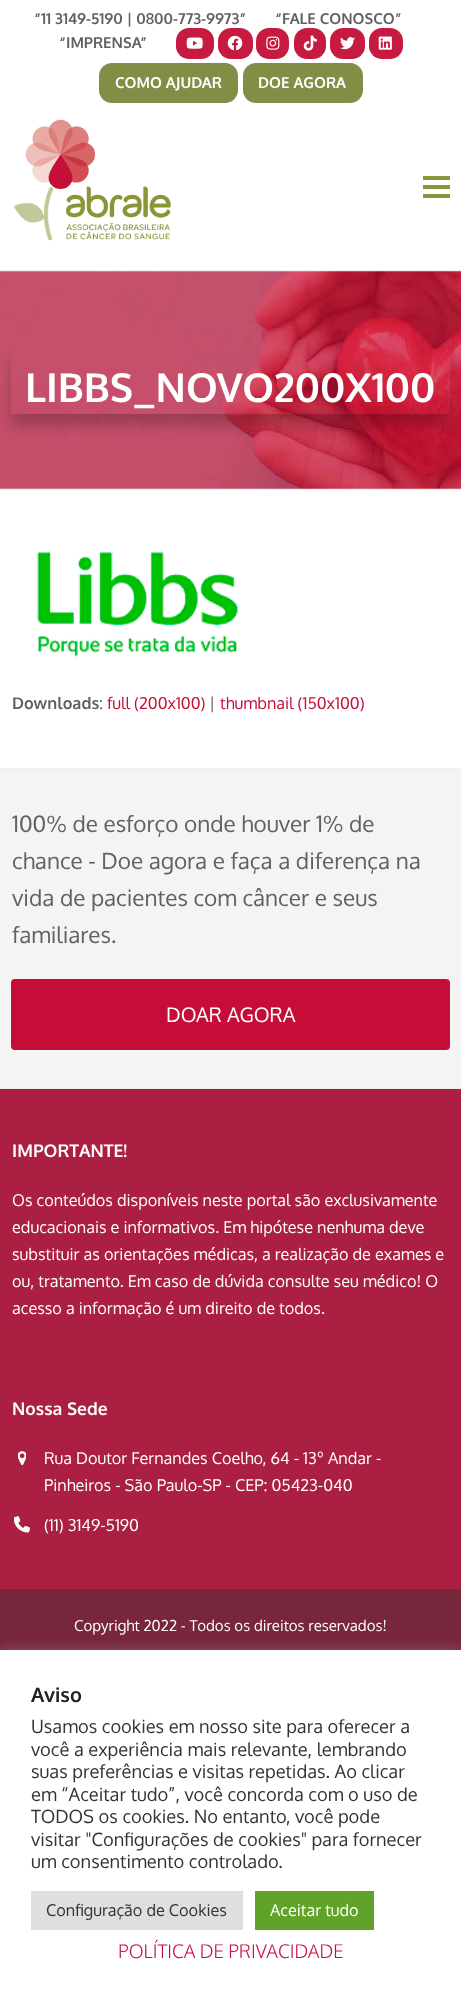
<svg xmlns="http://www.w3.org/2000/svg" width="461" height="1998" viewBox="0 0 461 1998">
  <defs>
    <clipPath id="clip1"><path d="M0 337H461V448H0ZM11 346H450V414H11Z" clip-rule="evenodd"/></clipPath>
    <filter id="blur1" x="-50%" y="-200%" width="200%" height="500%"><feGaussianBlur stdDeviation="7"/></filter>
    <filter id="blur2" x="-50%" y="-200%" width="200%" height="500%"><feGaussianBlur stdDeviation="6"/></filter>
  </defs>
  <rect width="100%" height="100%" fill="#ffffff"/>
  <text x="34" y="24" font-family="Oxygen" font-size="15" font-weight="bold" fill="#616161">“11 3149-5190 | 0800-773-9973”</text>
  <text x="275" y="24" font-family="Oxygen" font-size="15" font-weight="bold" fill="#616161">“FALE CONOSCO”</text>
  <text x="59" y="48" font-family="Oxygen" font-size="15" font-weight="bold" fill="#616161">“IMPRENSA</text>
  <text x="140" y="48" font-family="Oxygen" font-size="15" font-weight="bold" fill="#616161">”</text>
  <rect x="176" y="28" width="38" height="31" rx="13" fill="#c71a41"/>
  <image x="186" y="37" width="17" height="12" href="img1.png"/>
  <rect x="218" y="28" width="35" height="31" rx="13" fill="#c71a41"/>
  <image x="227" y="35" width="16" height="16" href="img2.png"/>
  <rect x="256" y="28" width="33" height="31" rx="13" fill="#c71a41"/>
  <image x="266" y="36" width="14" height="14" href="img3.png"/>
  <rect x="294" y="28" width="32" height="31" rx="13" fill="#c71a41"/>
  <image x="303" y="35" width="14" height="16" href="img4.png"/>
  <rect x="330" y="28" width="35" height="31" rx="13" fill="#c71a41"/>
  <image x="340" y="37" width="15" height="13" href="img5.png"/>
  <rect x="369" y="28" width="34" height="31" rx="13" fill="#c71a41"/>
  <image x="378" y="36" width="14" height="14" href="img6.png"/>
  <rect x="99" y="63" width="139" height="40" rx="13" fill="#818e45"/>
  <text x="115" y="88" font-family="Oxygen" font-size="15" font-weight="bold" fill="#ffffff">COMO AJUDAR</text>
  <rect x="243" y="63" width="120" height="40" rx="13" fill="#818e45"/>
  <text x="258" y="88" font-family="Oxygen" font-size="15" font-weight="bold" fill="#ffffff">DOE AGORA</text>
  <image x="14" y="119" width="157" height="122" href="img7.png"/>
  <rect x="423" y="185" width="27" height="4" fill="#8a9539"/>
  <rect x="423" y="176" width="27" height="4" fill="#8a9539"/>
  <rect x="423" y="194" width="27" height="4" fill="#8a9539"/>
  <image x="0" y="271" width="461" height="218" href="img8.png"/>
  <rect x="0" y="270" width="461" height="1" fill="#eeeeee"/>
  <rect x="0" y="489" width="461" height="1" fill="#eeeeee"/>
  <g clip-path="url(#clip1)">
    <rect x="11" y="359" width="439" height="67" fill="#000000" fill-opacity="0.21" filter="url(#blur1)"/>
  </g>
  <text x="25" y="402" font-family="Oxygen" font-size="40" font-weight="bold" fill="#ffffff">LIBBS_NOVO200X100</text>
  <image x="37" y="552" width="201" height="105" href="img9.png"/>
  <text x="12" y="709" font-family="Oxygen" font-size="16.25" font-weight="bold" fill="#616161">Downloads</text>
  <text x="99" y="709" font-family="Oxygen" font-size="16.25" fill="#616161">:</text>
  <text x="107" y="709" font-family="Oxygen" font-size="16.25" fill="#c50d37">full (200x100)</text>
  <text x="209" y="709" font-family="Oxygen" font-size="16.25" fill="#616161">|</text>
  <text x="220" y="709" font-family="Oxygen" font-size="16.25" fill="#c50d37">thumbnail (150x100)</text>
  <rect x="0" y="769" width="461" height="319" fill="#f4f4f4"/>
  <rect x="0" y="768" width="461" height="1" fill="#eeeeee"/>
  <rect x="0" y="1088" width="461" height="1" fill="#eeeeee"/>
  <text x="12" y="832" font-family="Oxygen" font-size="22.5" fill="#616161">100% de esforço onde houver 1% de</text>
  <text x="12" y="869" font-family="Oxygen" font-size="22.5" fill="#616161">chance - Doe agora e faça a diferença na</text>
  <text x="12" y="906" font-family="Oxygen" font-size="22.5" fill="#616161">vida de pacientes com câncer e seus</text>
  <text x="12" y="943" font-family="Oxygen" font-size="22.5" fill="#616161">familiares.</text>
  <rect x="11" y="979" width="439" height="71" rx="4" fill="#c50d37"/>
  <text x="166" y="1022" font-family="Oxygen" font-size="20" fill="#ffffff">DOAR AGORA</text>
  <rect x="0" y="1089" width="461" height="500" fill="#aa1f42"/>
  <text x="12" y="1157" font-family="Oxygen" font-size="17.5" font-weight="bold" fill="#ffffff">IMPORTANTE!</text>
  <text x="12" y="1206" font-family="Oxygen" font-size="16.25" fill="#ffffff">Os conteúdos disponíveis neste portal são exclusivamente</text>
  <text x="12" y="1233" font-family="Oxygen" font-size="16.25" fill="#ffffff">educacionais e informativos. Em hipótese nenhuma deve</text>
  <text x="12" y="1260" font-family="Oxygen" font-size="16.25" fill="#ffffff">substituir as orientações médicas, a realização de exames e</text>
  <text x="12" y="1287" font-family="Oxygen" font-size="16.25" fill="#ffffff">ou, tratamento. Em caso de dúvida consulte seu médico! O</text>
  <text x="12" y="1314" font-family="Oxygen" font-size="16.25" fill="#ffffff">acesso a informação é um direito de todos.</text>
  <text x="12" y="1415" font-family="Oxygen" font-size="17.5" font-weight="bold" fill="#ffffff">Nossa Sede</text>
  <image x="18" y="1451" width="8" height="15" href="img10.png"/>
  <text x="44" y="1464" font-family="Oxygen" font-size="16.25" fill="#ffffff">Rua Doutor Fernandes Coelho, 64 - 13º Andar -</text>
  <text x="44" y="1491" font-family="Oxygen" font-size="16.25" fill="#ffffff">Pinheiros - São Paulo-SP - CEP: 05423-040</text>
  <image x="14" y="1516" width="16" height="17" href="img11.png"/>
  <text x="44" y="1531" font-family="Oxygen" font-size="16.25" fill="#ffffff">(11) 3149-5190</text>
  <rect x="0" y="1589" width="461" height="61" fill="#77263b"/>
  <text x="74" y="1631" font-family="Oxygen" font-size="15" fill="#ffffff">Copyright 2022 - Todos os direitos reservados!</text>
  <rect x="0" y="1649" width="461" height="349" fill="#acabab" fill-opacity="0.3" filter="url(#blur2)"/>
  <rect x="0" y="1650" width="461" height="348" fill="#ffffff"/>
  <text x="31" y="1702" font-family="Oxygen" font-size="20" font-weight="bold" fill="#222222">Aviso</text>
  <text x="31" y="1733" font-family="Oxygen" font-size="18.3" fill="#333333">Usamos cookies em nosso site para oferecer a</text>
  <text x="31" y="1756" font-family="Oxygen" font-size="18.3" fill="#333333">você a experiência mais relevante, lembrando</text>
  <text x="31" y="1778" font-family="Oxygen" font-size="18.3" fill="#333333">suas preferências e visitas repetidas. Ao clicar</text>
  <text x="31" y="1801" font-family="Oxygen" font-size="18.3" fill="#333333">em “Aceitar tudo”, você concorda com o uso de</text>
  <text x="31" y="1823" font-family="Oxygen" font-size="18.3" fill="#333333">TODOS os cookies. No entanto, você pode</text>
  <text x="31" y="1846" font-family="Oxygen" font-size="18.3" fill="#333333">visitar "Configurações de cookies" para fornecer</text>
  <text x="31" y="1868" font-family="Oxygen" font-size="18.3" fill="#333333">um consentimento controlado.</text>
  <rect x="31" y="1891" width="212" height="39" fill="#dedfe0"/>
  <text x="46" y="1916" font-family="Oxygen" font-size="16.25" fill="#333333">Configuração de Cookies</text>
  <rect x="255" y="1891" width="119" height="39" fill="#61a229"/>
  <text x="270" y="1916" font-family="Oxygen" font-size="16.25" fill="#ffffff">Aceitar tudo</text>
  <text x="118" y="1958" font-family="Oxygen" font-size="18.75" font-weight="300" fill="#c50d37">POLÍTICA DE PRIVACIDADE</text>
</svg>
